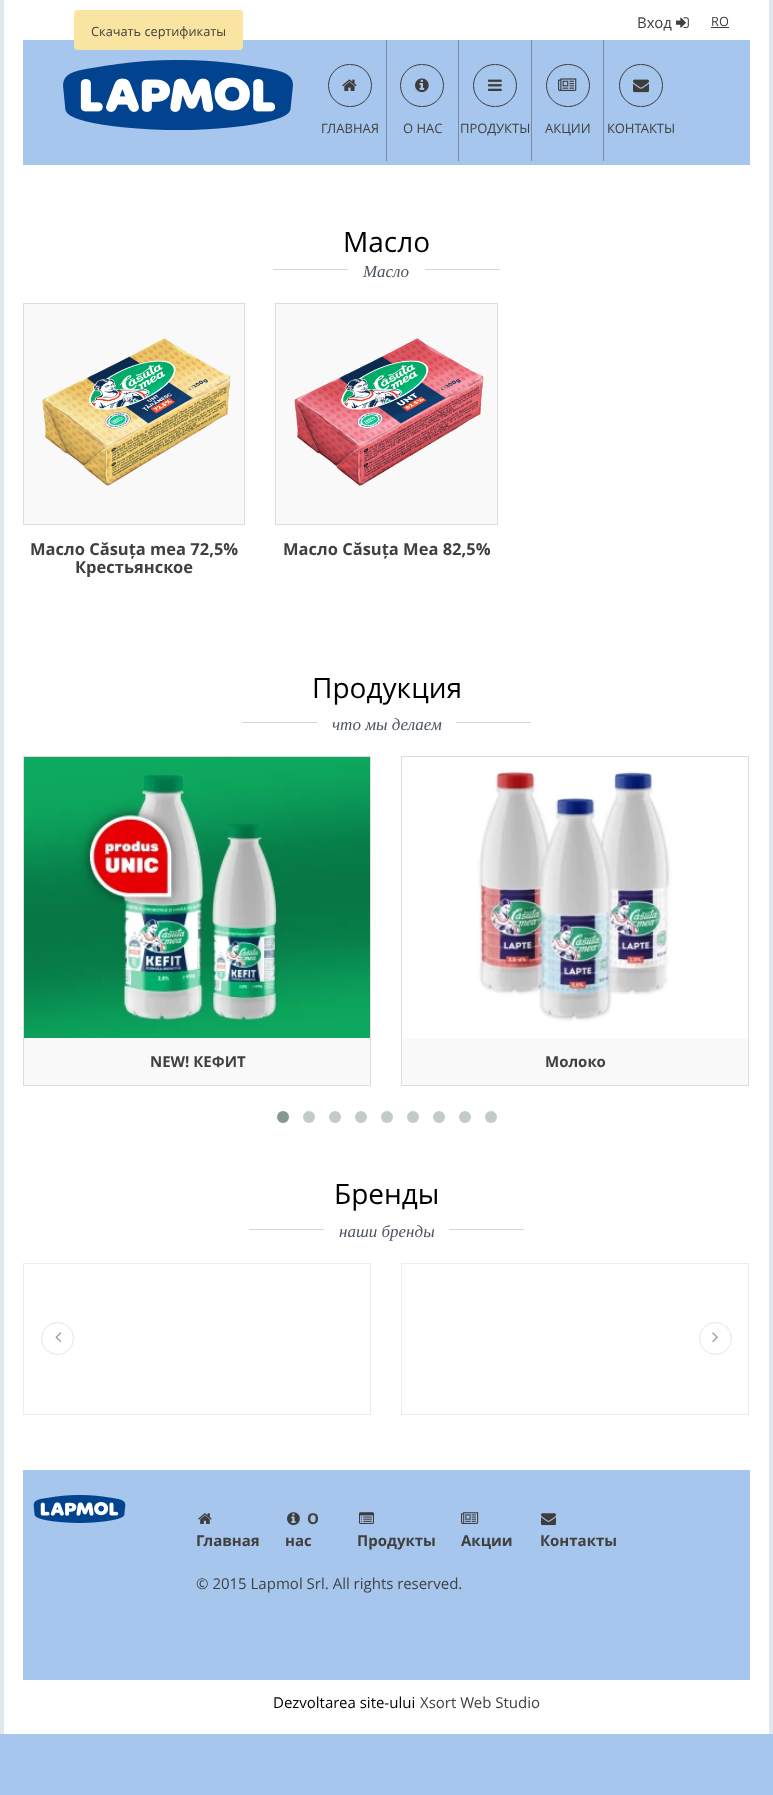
<svg xmlns="http://www.w3.org/2000/svg" width="773" height="1795" viewBox="0 0 773 1795">
  <rect width="100%" height="100%" fill="#a7c6ed"/>
  <rect x="0" y="0" width="773" height="1734" fill="#e2e6ed"/>
  <rect x="4" y="0" width="765" height="1734" fill="#ffffff"/>
  <text x="637" y="28" font-family="Open Sans" font-size="15" fill="#404040">Вход</text>
  <image x="676" y="17" width="13" height="11" href="img1.png"/>
  <text x="711" y="26" font-family="Open Sans" font-size="12.75" fill="#404040">RO</text>
  <rect x="711" y="27" width="18" height="1" fill="#404040"/>
  <rect x="23" y="40" width="727" height="125" fill="#a7c6ed"/>
  <rect x="75" y="11" width="167" height="38" rx="3" fill="#f9e5a1" stroke="#f9e5a1" stroke-width="2"/>
  <text x="91" y="36" font-family="Open Sans" font-size="12.75" fill="#404040">Скачать сертификаты</text>
  <image x="63" y="60" width="230" height="70" href="img2.png"/>
  <rect x="386" y="40" width="1" height="121" fill="#758ba6"/>
  <rect x="328.5" y="64.5" width="43" height="42" rx="21" fill="none" stroke="#3d3d3d"/>
  <image x="342" y="79" width="15" height="12" href="img3.png"/>
  <text x="321" y="133" font-family="Open Sans" font-size="13" fill="#404040">ГЛАВНАЯ</text>
  <rect x="458" y="40" width="1" height="121" fill="#758ba6"/>
  <rect x="400.5" y="64.5" width="43" height="42" rx="21" fill="none" stroke="#3d3d3d"/>
  <image x="415" y="78" width="14" height="15" href="img4.png"/>
  <text x="403" y="133" font-family="Open Sans" font-size="13" fill="#404040">О НАС</text>
  <rect x="531" y="40" width="1" height="121" fill="#758ba6"/>
  <rect x="473.5" y="64.5" width="43" height="42" rx="21" fill="none" stroke="#3d3d3d"/>
  <image x="488" y="79" width="14" height="12" href="img5.png"/>
  <text x="460" y="133" font-family="Open Sans" font-size="13" fill="#404040">ПРОДУКТЫ</text>
  <rect x="603" y="40" width="1" height="121" fill="#758ba6"/>
  <rect x="546.5" y="64.5" width="43" height="42" rx="21" fill="none" stroke="#3d3d3d"/>
  <image x="558" y="78" width="19" height="13" href="img6.png"/>
  <text x="545" y="133" font-family="Open Sans" font-size="13" fill="#404040">АКЦИИ</text>
  <rect x="619.5" y="64.5" width="43" height="42" rx="21" fill="none" stroke="#3d3d3d"/>
  <image x="633" y="79" width="16" height="14" href="img7.png"/>
  <text x="607" y="133" font-family="Open Sans" font-size="13" fill="#404040">КОНТАКТЫ</text>
  <text x="343" y="252" font-family="Open Sans" font-size="28" fill="#000000">Масло</text>
  <rect x="273" y="269" width="227" height="1" fill="#d6d6d6"/>
  <rect x="348" y="269" width="77" height="1" fill="#ffffff"/>
  <text x="363" y="277" font-family="Liberation Serif" font-size="17" font-style="italic" fill="#4c545f">Масло</text>
  <rect x="23.5" y="303.5" width="221" height="221" fill="#f9f9f9" stroke="#dddddd"/>
  <image x="42" y="337" width="189" height="149" href="img8.png"/>
  <text x="30" y="555" font-family="Open Sans" font-size="16.5" font-weight="bold" fill="#404040">Масло Căsuța mea 72,5%</text>
  <text x="75" y="573" font-family="Open Sans" font-size="16.5" font-weight="bold" fill="#404040">Крестьянское</text>
  <rect x="275.5" y="303.5" width="222" height="221" fill="#f9f9f9" stroke="#dddddd"/>
  <image x="294" y="338" width="190" height="148" href="img9.png"/>
  <text x="283" y="555" font-family="Open Sans" font-size="16.5" font-weight="bold" fill="#404040">Масло Căsuța Mea 82,5%</text>
  <text x="312" y="698" font-family="Open Sans" font-size="28" fill="#000000">Продукция</text>
  <rect x="242" y="722" width="289" height="1" fill="#d6d6d6"/>
  <rect x="317" y="722" width="139" height="1" fill="#ffffff"/>
  <text x="332" y="730" font-family="Liberation Serif" font-size="17" font-style="italic" fill="#4c545f">что мы делаем</text>
  <rect x="24" y="1038" width="346" height="47" fill="#f9f9f9"/>
  <rect x="23.5" y="756.5" width="347" height="329" fill="none" stroke="#dddddd"/>
  <image x="24" y="757" width="346" height="281" href="img10.png"/>
  <text x="150" y="1067" font-family="Open Sans" font-size="15" font-weight="bold" fill="#404040">NEW! КЕФИТ</text>
  <rect x="402" y="1038" width="346" height="47" fill="#f9f9f9"/>
  <rect x="401.5" y="756.5" width="347" height="329" fill="none" stroke="#dddddd"/>
  <image x="402" y="757" width="346" height="281" href="img11.png"/>
  <text x="545" y="1067" font-family="Open Sans" font-size="15" font-weight="bold" fill="#404040">Молоко</text>
  <circle cx="283" cy="1117" r="6" fill="#869791"/>
  <circle cx="309" cy="1117" r="6" fill="#c3cbc8"/>
  <circle cx="335" cy="1117" r="6" fill="#c3cbc8"/>
  <circle cx="361" cy="1117" r="6" fill="#c3cbc8"/>
  <circle cx="387" cy="1117" r="6" fill="#c3cbc8"/>
  <circle cx="413" cy="1117" r="6" fill="#c3cbc8"/>
  <circle cx="439" cy="1117" r="6" fill="#c3cbc8"/>
  <circle cx="465" cy="1117" r="6" fill="#c3cbc8"/>
  <circle cx="491" cy="1117" r="6" fill="#c3cbc8"/>
  <text x="334" y="1204" font-family="Open Sans" font-size="28" fill="#000000">Бренды</text>
  <rect x="249" y="1229" width="275" height="1" fill="#d6d6d6"/>
  <rect x="324" y="1229" width="125" height="1" fill="#ffffff"/>
  <text x="339" y="1237" font-family="Liberation Serif" font-size="17" font-style="italic" fill="#4c545f">наши бренды</text>
  <rect x="23.5" y="1263.5" width="347" height="151" fill="none" stroke="#ececec"/>
  <rect x="401.5" y="1263.5" width="347" height="151" fill="none" stroke="#ececec"/>
  <circle cx="57.5" cy="1338.5" r="16" fill="none" stroke="#e5e5e5"/>
  <image x="55" y="1332" width="7" height="11" href="img12.png"/>
  <circle cx="715.5" cy="1338.5" r="16" fill="none" stroke="#e5e5e5"/>
  <image x="712" y="1332" width="6" height="11" href="img13.png"/>
  <rect x="23" y="1470" width="727" height="210" fill="#a7c6ed"/>
  <image x="33" y="1495" width="93" height="28" href="img14.png"/>
  <image x="198" y="1513" width="14" height="11" href="img15.png"/>
  <text x="196" y="1546" font-family="Open Sans" font-size="15" font-weight="bold" fill="#404040">Главная</text>
  <image x="287" y="1512" width="13" height="14" href="img16.png"/>
  <text x="307" y="1524" font-family="Open Sans" font-size="15" font-weight="bold" fill="#404040">О</text>
  <text x="285" y="1546" font-family="Open Sans" font-size="15" font-weight="bold" fill="#404040">нас</text>
  <image x="359" y="1512" width="15" height="12" href="img17.png"/>
  <text x="357" y="1546" font-family="Open Sans" font-size="15" font-weight="bold" fill="#404040">Продукты</text>
  <image x="461" y="1512" width="18" height="12" href="img18.png"/>
  <text x="461" y="1546" font-family="Open Sans" font-size="15" font-weight="bold" fill="#404040">Акции</text>
  <image x="541" y="1513" width="15" height="13" href="img19.png"/>
  <text x="540" y="1546" font-family="Open Sans" font-size="15" font-weight="bold" fill="#404040">Контакты</text>
  <text x="196" y="1589" font-family="Open Sans" font-size="15" fill="#404040">© 2015 Lapmol Srl. All rights reserved.</text>
  <text x="273" y="1708" font-family="Open Sans" font-size="15" fill="#000000">Dezvoltarea site-ului</text>
  <text x="420" y="1708" font-family="Open Sans" font-size="15" fill="#404040">Xsort Web Studio</text>
</svg>
